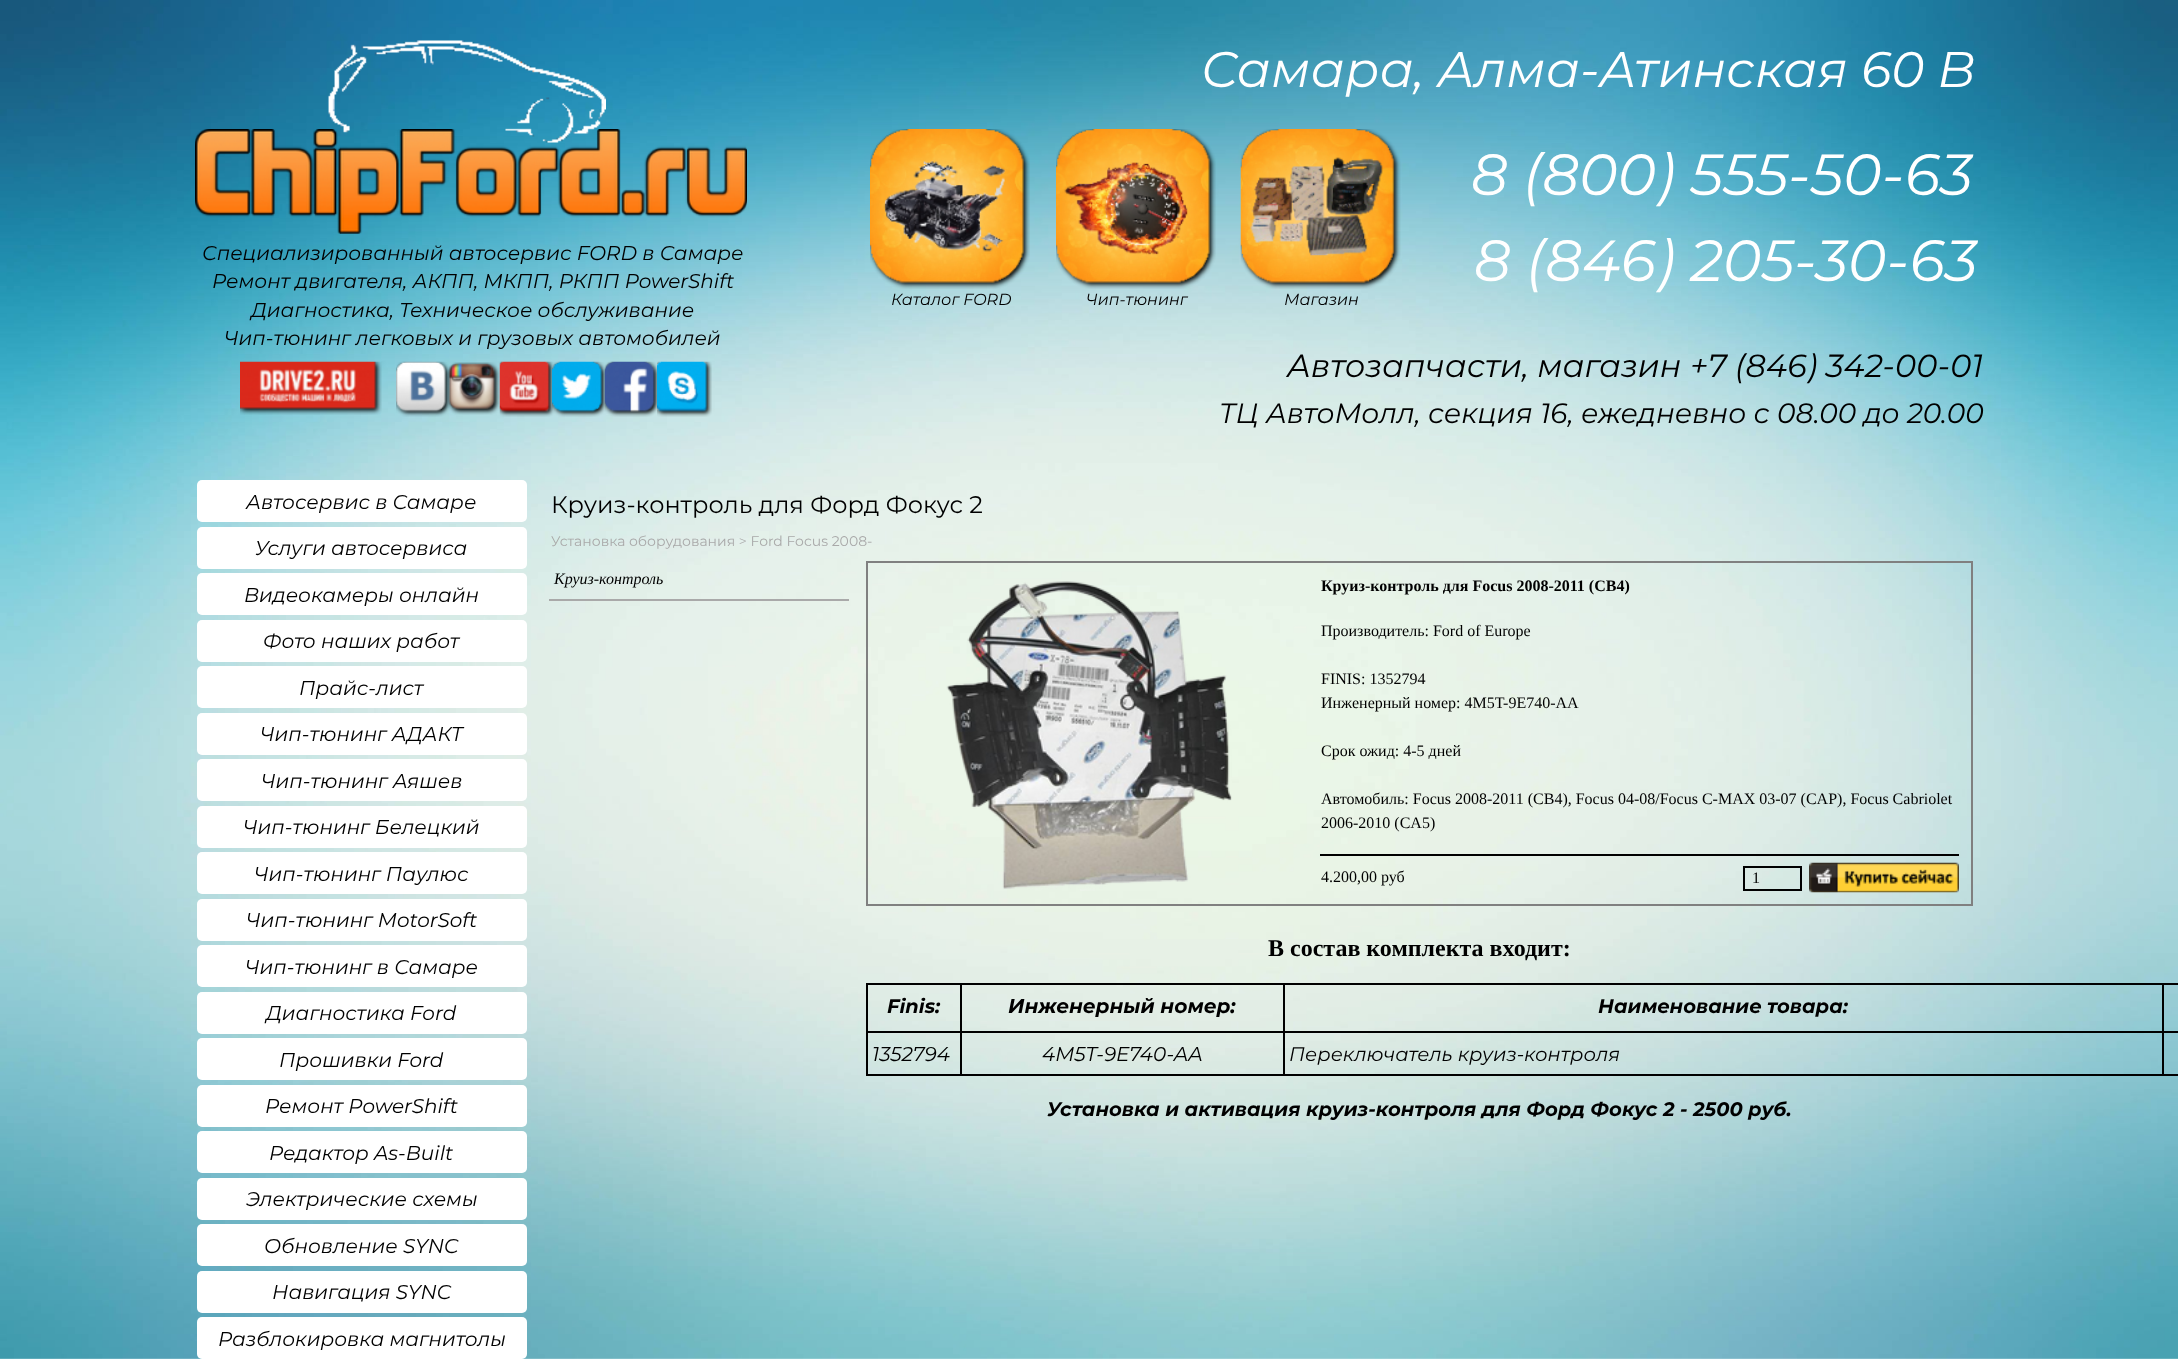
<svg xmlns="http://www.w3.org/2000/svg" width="2178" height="1359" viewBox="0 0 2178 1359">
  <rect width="100%" height="100%" fill="#ffffff"/>
  <image x="0" y="0" width="2178" height="1359" href="img1.png"/>
  <image x="195" y="129" width="552" height="105" href="img3.png"/>
  <image x="328" y="40" width="278" height="103" href="img2.png"/>
  <text x="1201" y="87" font-family="Montserrat" font-size="50" font-style="italic" fill="#ffffff">Самара, Алма-Атинская 60 В</text>
  <image x="870" y="129" width="160" height="160" href="img4.png"/>
  <image x="1056" y="129" width="160" height="160" href="img5.png"/>
  <image x="1240" y="129" width="161" height="160" href="img6.png"/>
  <text x="1471" y="195" font-family="Montserrat" font-size="58" font-style="italic" fill="#ffffff">8 (800) 555-50-63</text>
  <text x="202" y="260" font-family="Montserrat" font-size="20" font-style="italic" fill="#000000">Специализированный автосервис FORD в Самаре</text>
  <text x="1474" y="281" font-family="Montserrat" font-size="58" font-style="italic" fill="#ffffff">8 (846) 205-30-63</text>
  <text x="212" y="288" font-family="Montserrat" font-size="20" font-style="italic" fill="#000000">Ремонт двигателя, АКПП, МКПП, РКПП PowerShift</text>
  <text x="891" y="305" font-family="Montserrat" font-size="16" font-style="italic" fill="#000000">Каталог FORD</text>
  <text x="1086" y="305" font-family="Montserrat" font-size="16" font-style="italic" fill="#000000">Чип-тюнинг</text>
  <text x="1284" y="305" font-family="Montserrat" font-size="16" font-style="italic" fill="#000000">Магазин</text>
  <text x="251" y="317" font-family="Montserrat" font-size="20" font-style="italic" fill="#000000">Диагностика, Техническое обслуживание</text>
  <text x="224" y="345" font-family="Montserrat" font-size="20" font-style="italic" fill="#000000">Чип-тюнинг легковых и грузовых автомобилей</text>
  <image x="240" y="361" width="142" height="54" href="img7.png"/>
  <image x="396" y="361" width="55" height="56" href="img8.png"/>
  <image x="447" y="362" width="53" height="53" href="img9.png"/>
  <image x="499" y="361" width="56" height="56" href="img10.png"/>
  <image x="552" y="361" width="55" height="56" href="img11.png"/>
  <image x="604" y="361" width="55" height="56" href="img12.png"/>
  <image x="657" y="361" width="55" height="56" href="img13.png"/>
  <text x="1287" y="377" font-family="Montserrat" font-size="32" font-style="italic" fill="#000000">Автозапчасти, магазин +7 (846) 342-00-01</text>
  <text x="1219" y="423" font-family="Montserrat" font-size="28" font-style="italic" fill="#000000">ТЦ АвтоМолл, секция 16, ежедневно с 08.00 до 20.00</text>
  <rect x="197" y="480" width="330" height="42" rx="5" fill="#ffffff"/>
  <text x="246" y="509" font-family="Montserrat" font-size="20" font-style="italic" fill="#000000">Автосервис в Самаре</text>
  <rect x="197" y="527" width="330" height="42" rx="5" fill="#ffffff"/>
  <text x="255" y="555" font-family="Montserrat" font-size="20" font-style="italic" fill="#000000">Услуги автосервиса</text>
  <rect x="197" y="573" width="330" height="42" rx="5" fill="#ffffff"/>
  <text x="244" y="602" font-family="Montserrat" font-size="20" font-style="italic" fill="#000000">Видеокамеры онлайн</text>
  <rect x="197" y="620" width="330" height="42" rx="5" fill="#ffffff"/>
  <text x="263" y="648" font-family="Montserrat" font-size="20" font-style="italic" fill="#000000">Фото наших работ</text>
  <rect x="197" y="666" width="330" height="42" rx="5" fill="#ffffff"/>
  <text x="299" y="695" font-family="Montserrat" font-size="20" font-style="italic" fill="#000000">Прайс-лист</text>
  <rect x="197" y="713" width="330" height="42" rx="5" fill="#ffffff"/>
  <text x="260" y="741" font-family="Montserrat" font-size="20" font-style="italic" fill="#000000">Чип-тюнинг АДАКТ</text>
  <rect x="197" y="759" width="330" height="42" rx="5" fill="#ffffff"/>
  <text x="261" y="788" font-family="Montserrat" font-size="20" font-style="italic" fill="#000000">Чип-тюнинг Аяшев</text>
  <rect x="197" y="806" width="330" height="42" rx="5" fill="#ffffff"/>
  <text x="243" y="834" font-family="Montserrat" font-size="20" font-style="italic" fill="#000000">Чип-тюнинг Белецкий</text>
  <rect x="197" y="852" width="330" height="42" rx="5" fill="#ffffff"/>
  <text x="254" y="881" font-family="Montserrat" font-size="20" font-style="italic" fill="#000000">Чип-тюнинг Паулюс</text>
  <rect x="197" y="899" width="330" height="42" rx="5" fill="#ffffff"/>
  <text x="246" y="927" font-family="Montserrat" font-size="20" font-style="italic" fill="#000000">Чип-тюнинг MotorSoft</text>
  <rect x="197" y="945" width="330" height="42" rx="5" fill="#ffffff"/>
  <text x="245" y="974" font-family="Montserrat" font-size="20" font-style="italic" fill="#000000">Чип-тюнинг в Самаре</text>
  <rect x="197" y="992" width="330" height="42" rx="5" fill="#ffffff"/>
  <text x="266" y="1020" font-family="Montserrat" font-size="20" font-style="italic" fill="#000000">Диагностика Ford</text>
  <rect x="197" y="1038" width="330" height="42" rx="5" fill="#ffffff"/>
  <text x="279" y="1067" font-family="Montserrat" font-size="20" font-style="italic" fill="#000000">Прошивки Ford</text>
  <rect x="197" y="1085" width="330" height="42" rx="5" fill="#ffffff"/>
  <text x="265" y="1113" font-family="Montserrat" font-size="20" font-style="italic" fill="#000000">Ремонт PowerShift</text>
  <rect x="197" y="1131" width="330" height="42" rx="5" fill="#ffffff"/>
  <text x="269" y="1160" font-family="Montserrat" font-size="20" font-style="italic" fill="#000000">Редактор As-Built</text>
  <rect x="197" y="1178" width="330" height="42" rx="5" fill="#ffffff"/>
  <text x="246" y="1206" font-family="Montserrat" font-size="20" font-style="italic" fill="#000000">Электрические схемы</text>
  <rect x="197" y="1224" width="330" height="42" rx="5" fill="#ffffff"/>
  <text x="264" y="1253" font-family="Montserrat" font-size="20" font-style="italic" fill="#000000">Обновление SYNC</text>
  <rect x="197" y="1271" width="330" height="42" rx="5" fill="#ffffff"/>
  <text x="272" y="1299" font-family="Montserrat" font-size="20" font-style="italic" fill="#000000">Навигация SYNC</text>
  <rect x="197" y="1317" width="330" height="42" rx="5" fill="#ffffff"/>
  <text x="218" y="1346" font-family="Montserrat" font-size="20" font-style="italic" fill="#000000">Разблокировка магнитолы</text>
  <text x="551" y="513" font-family="Montserrat" font-size="24" fill="#000000">Круиз-контроль для Форд Фокус 2</text>
  <text x="551" y="546" font-family="Montserrat" font-size="14" fill="#a9a9a9">Установка оборудования &gt; Ford Focus 2008-</text>
  <rect x="549" y="599" width="300" height="2" fill="#a9a9a9"/>
  <text x="554" y="584" font-family="Liberation Serif" font-size="16" font-style="italic" fill="#000000">Круиз-контроль</text>
  <rect x="867" y="562" width="1105" height="343" fill="none" stroke="#808080" stroke-width="2"/>
  <image x="946" y="581" width="286" height="310" href="img14.png"/>
  <text x="1321" y="591" font-family="Liberation Serif" font-size="16" font-weight="bold" fill="#000000">Круиз-контроль для Focus 2008-2011 (CB4)</text>
  <text x="1321" y="636" font-family="Liberation Serif" font-size="16" fill="#000000">Производитель: Ford of Europe</text>
  <text x="1321" y="684" font-family="Liberation Serif" font-size="16" fill="#000000">FINIS: 1352794</text>
  <text x="1321" y="708" font-family="Liberation Serif" font-size="16" fill="#000000">Инженерный номер: 4M5T-9E740-AA</text>
  <text x="1321" y="756" font-family="Liberation Serif" font-size="16" fill="#000000">Срок ожид: 4-5 дней</text>
  <text x="1321" y="804" font-family="Liberation Serif" font-size="16" fill="#000000">Автомобиль: Focus 2008-2011 (CB4), Focus 04-08/Focus C-MAX 03-07 (CAP), Focus Cabriolet</text>
  <text x="1321" y="828" font-family="Liberation Serif" font-size="16" fill="#000000">2006-2010 (CA5)</text>
  <rect x="1320" y="854" width="639" height="2" fill="#000000"/>
  <text x="1321" y="882" font-family="Liberation Serif" font-size="16" fill="#000000">4.200,00 руб</text>
  <rect x="1744" y="867" width="57" height="23" fill="none" stroke="#000000" stroke-width="2"/>
  <text x="1752" y="883" font-family="Liberation Serif" font-size="16" fill="#000000">1</text>
  <image x="1809" y="862" width="150" height="31" href="img15.png"/>
  <text x="1268" y="956" font-family="Liberation Serif" font-size="24" font-weight="bold" fill="#000000">В состав комплекта входит:</text>
  <rect x="2162" y="983" width="16" height="2" fill="#000000"/>
  <rect x="2162" y="1031" width="16" height="2" fill="#000000"/>
  <rect x="2162" y="1074" width="16" height="2" fill="#000000"/>
  <rect x="2162" y="1031" width="2" height="45" fill="#000000"/>
  <rect x="1283" y="1031" width="880" height="2" fill="#000000"/>
  <rect x="2162" y="983" width="2" height="49" fill="#000000"/>
  <rect x="1283" y="983" width="880" height="2" fill="#000000"/>
  <rect x="1283" y="1074" width="880" height="2" fill="#000000"/>
  <rect x="1283" y="1031" width="2" height="45" fill="#000000"/>
  <rect x="960" y="1031" width="324" height="2" fill="#000000"/>
  <rect x="1283" y="983" width="2" height="49" fill="#000000"/>
  <rect x="960" y="983" width="324" height="2" fill="#000000"/>
  <rect x="960" y="1074" width="324" height="2" fill="#000000"/>
  <rect x="960" y="1031" width="2" height="45" fill="#000000"/>
  <rect x="866" y="1031" width="96" height="2" fill="#000000"/>
  <rect x="960" y="983" width="2" height="49" fill="#000000"/>
  <rect x="866" y="983" width="96" height="2" fill="#000000"/>
  <rect x="866" y="1074" width="96" height="2" fill="#000000"/>
  <rect x="866" y="1031" width="2" height="45" fill="#000000"/>
  <rect x="866" y="983" width="2" height="49" fill="#000000"/>
  <text x="887" y="1013" font-family="Montserrat" font-size="19.5" font-weight="bold" font-style="italic" fill="#000000">Finis:</text>
  <text x="1008" y="1013" font-family="Montserrat" font-size="20" font-weight="bold" font-style="italic" fill="#000000">Инженерный номер:</text>
  <text x="1598" y="1013" font-family="Montserrat" font-size="19.5" font-weight="bold" font-style="italic" fill="#000000">Наименование товара:</text>
  <text x="872" y="1061" font-family="Montserrat" font-size="20" font-style="italic" fill="#000000">1352794</text>
  <text x="1042" y="1061" font-family="Montserrat" font-size="20" font-style="italic" fill="#000000">4M5T-9E740-AA</text>
  <text x="1289" y="1061" font-family="Montserrat" font-size="19.5" font-style="italic" fill="#000000">Переключатель круиз-контроля</text>
  <text x="1047" y="1116" font-family="Montserrat" font-size="19.5" font-weight="bold" font-style="italic" fill="#000000">Установка и активация круиз-контроля для Форд Фокус 2 - 2500 руб.</text>
</svg>
